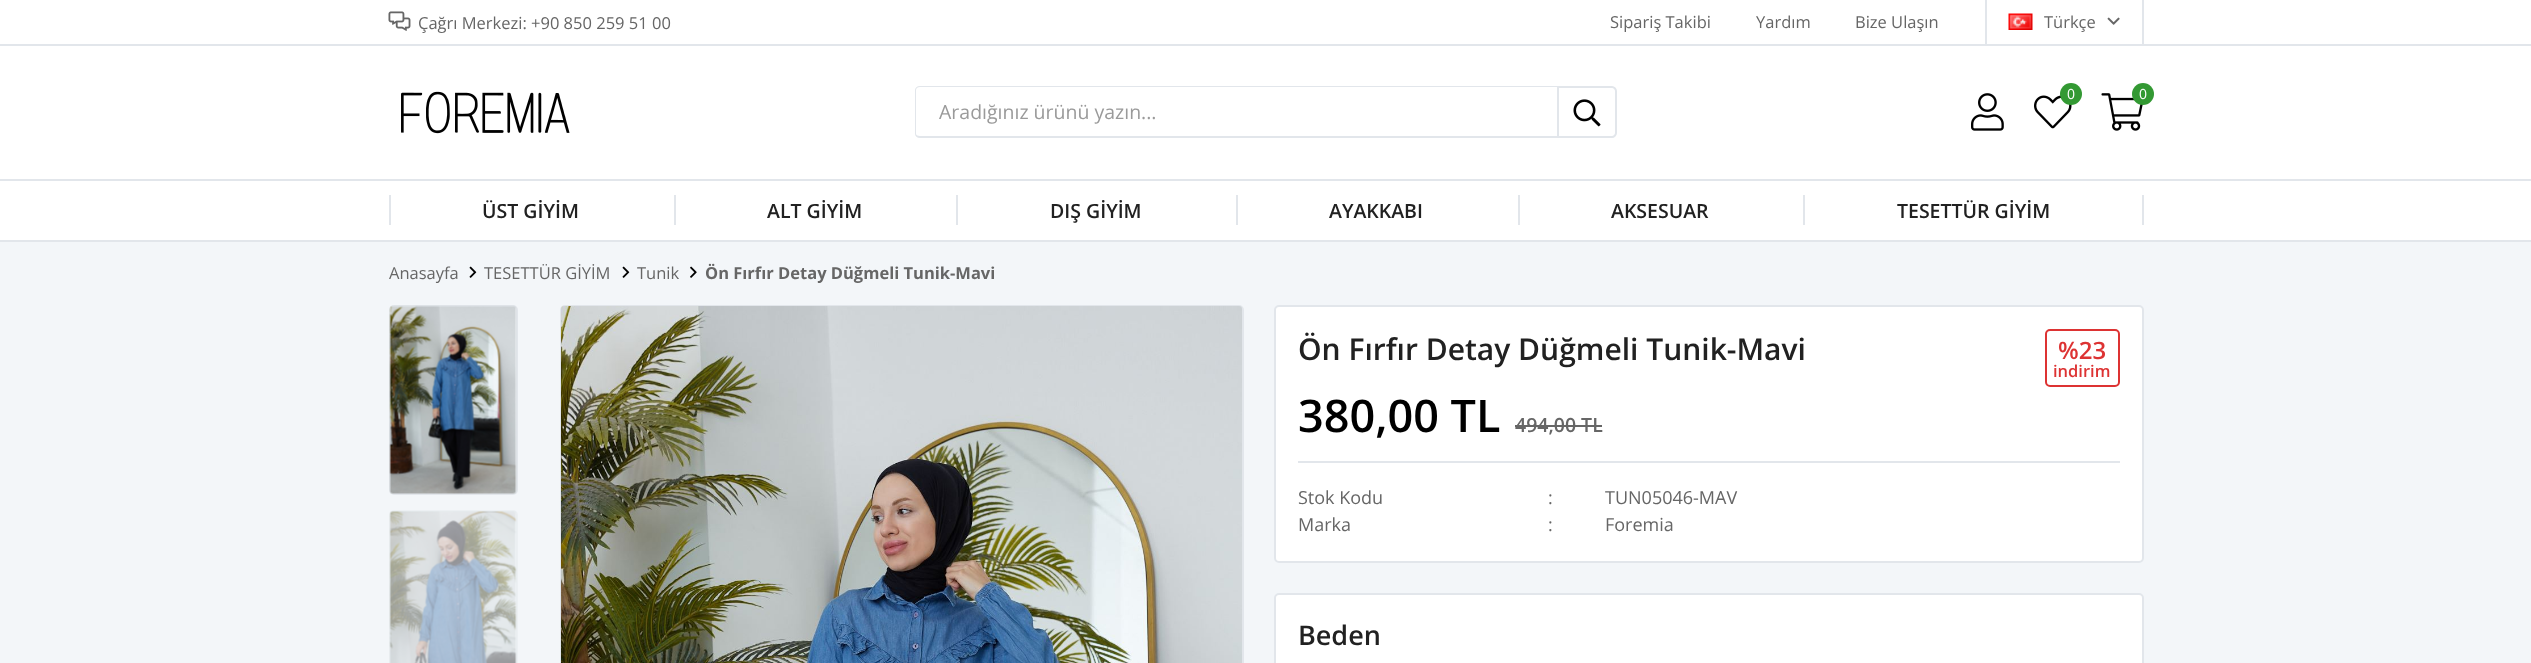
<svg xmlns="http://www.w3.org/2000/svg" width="2531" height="663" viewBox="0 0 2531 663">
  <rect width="100%" height="100%" fill="#f3f6f9"/>
  <rect x="0" y="0" width="2531" height="240" fill="#ffffff"/>
  <rect x="0" y="44" width="2531" height="2" fill="#e2e6eb"/>
  <image x="388" y="11" width="23" height="20" href="img1.png"/>
  <text x="418" y="29" font-family="Open Sans" font-size="16.5" fill="#666666">Çağrı Merkezi: +90 850 259 51 00</text>
  <text x="1610" y="28" font-family="Open Sans" font-size="16.5" fill="#666666">Sipariş Takibi</text>
  <text x="1756" y="28" font-family="Open Sans" font-size="16.5" fill="#666666">Yardım</text>
  <text x="1855" y="28" font-family="Open Sans" font-size="16.5" fill="#666666">Bize Ulaşın</text>
  <rect x="2142" y="0" width="2" height="45" fill="#e2e6eb"/>
  <rect x="1985" y="0" width="2" height="45" fill="#e2e6eb"/>
  <image x="2008" y="13" width="25" height="17" href="img2.png"/>
  <text x="2044" y="28" font-family="Open Sans" font-size="16.5" fill="#666666">Türkçe</text>
  <image x="2107" y="17" width="13" height="8" href="img3.png"/>
  <rect x="0" y="179" width="2531" height="2" fill="#e2e6eb"/>
  <image x="401" y="91" width="169" height="43" href="img4.png"/>
  <path d="M920 86H1557V138H920C917 138 915 136 915 134V90C915 88 917 86 920 86ZM920 87H1557V136H920C918 136 916 135 916 134V90C916 88 918 87 920 87Z" fill="#e2e6eb" fill-rule="evenodd"/>
  <text x="939" y="119" font-family="Open Sans" font-size="19.5" fill="#9a9a9a">Aradığınız ürünü yazın...</text>
  <path d="M1558 87H1612C1614 87 1616 89 1616 91V133C1616 135 1614 137 1612 137H1558Z" fill="none" stroke="#e2e6eb" stroke-width="2"/>
  <image x="1573" y="99" width="28" height="28" href="img5.png"/>
  <image x="1971" y="93" width="33" height="38" href="img6.png"/>
  <image x="2034" y="95" width="38" height="34" href="img7.png"/>
  <circle cx="2071" cy="94" r="11" fill="#339933"/>
  <text x="2067" y="99" font-family="Open Sans" font-size="14" fill="#ffffff">0</text>
  <image x="2101" y="93" width="42" height="38" href="img8.png"/>
  <circle cx="2143" cy="94" r="11" fill="#339933"/>
  <text x="2139" y="99" font-family="Open Sans" font-size="14" fill="#ffffff">0</text>
  <rect x="0" y="240" width="2531" height="2" fill="#e2e6eb"/>
  <rect x="389" y="195" width="2" height="30" fill="#e2e6eb"/>
  <text x="482" y="218" font-family="Open Sans" font-size="19.5" font-weight="600" fill="#212121">ÜST GİYİM</text>
  <rect x="674" y="195" width="2" height="30" fill="#e2e6eb"/>
  <text x="767" y="218" font-family="Open Sans" font-size="19.5" font-weight="600" fill="#212121">ALT GİYİM</text>
  <rect x="956" y="195" width="2" height="30" fill="#e2e6eb"/>
  <text x="1050" y="218" font-family="Open Sans" font-size="19.5" font-weight="600" fill="#212121">DIŞ GİYİM</text>
  <rect x="1236" y="195" width="2" height="30" fill="#e2e6eb"/>
  <text x="1329" y="218" font-family="Open Sans" font-size="19.5" font-weight="600" fill="#212121">AYAKKABI</text>
  <rect x="1518" y="195" width="2" height="30" fill="#e2e6eb"/>
  <text x="1611" y="218" font-family="Open Sans" font-size="19.5" font-weight="600" fill="#212121">AKSESUAR</text>
  <rect x="1803" y="195" width="2" height="30" fill="#e2e6eb"/>
  <text x="1897" y="218" font-family="Open Sans" font-size="19.5" font-weight="600" fill="#212121">TESETTÜR GİYİM</text>
  <rect x="2142" y="195" width="2" height="30" fill="#e2e6eb"/>
  <text x="389" y="279" font-family="Open Sans" font-size="16.5" fill="#666666">Anasayfa</text>
  <image x="469" y="266" width="8" height="12" href="img9.png"/>
  <text x="484" y="279" font-family="Open Sans" font-size="16.5" fill="#666666">TESETTÜR GİYİM</text>
  <image x="622" y="266" width="8" height="12" href="img9.png"/>
  <text x="637" y="279" font-family="Open Sans" font-size="16.5" fill="#666666">Tunik</text>
  <image x="690" y="266" width="7" height="12" href="img10.png"/>
  <text x="705" y="279" font-family="Open Sans" font-size="16.5" font-weight="bold" fill="#666666">Ön Fırfır Detay Düğmeli Tunik-Mavi</text>
  <rect x="390" y="306" width="127" height="188" rx="4" fill="none" stroke="#e2e6eb" stroke-width="2"/>
  <image x="389" y="305" width="128" height="189" href="img11.png"/>
  <rect x="390" y="511" width="127" height="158" rx="4" fill="none" stroke="#ecf0f3" stroke-width="2"/>
  <image x="389" y="511" width="128" height="152" href="img12.png"/>
  <rect x="561" y="306" width="682" height="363" rx="4" fill="none" stroke="#e2e6eb" stroke-width="2"/>
  <image x="561" y="306" width="681" height="357" href="img13.png"/>
  <rect x="1275" y="306" width="868" height="256" rx="4" fill="#ffffff" stroke="#e2e6eb" stroke-width="2"/>
  <text x="1298" y="360" font-family="Open Sans" font-size="30" font-weight="600" fill="#212121">Ön Fırfır Detay Düğmeli Tunik-Mavi</text>
  <rect x="1298" y="461" width="822" height="2" fill="#e2e6eb"/>
  <text x="1298" y="432" font-family="Open Sans" font-size="45" font-weight="600" fill="#000000">380,00 TL</text>
  <rect x="2046" y="330" width="73" height="56" rx="4" fill="none" stroke="#dd3333" stroke-width="2"/>
  <text x="2058" y="359" font-family="Open Sans" font-size="24" font-weight="600" fill="#dd3333">%23</text>
  <text x="2053" y="377" font-family="Open Sans" font-size="16.5" font-weight="600" fill="#dd3333">indirim</text>
  <text x="1515" y="432" font-family="Open Sans" font-size="19.5" font-weight="600" fill="#666666">494,00 TL</text>
  <rect x="1515" y="425" width="87" height="2" fill="#666666"/>
  <text x="1298" y="504" font-family="Open Sans" font-size="18" fill="#666666">Stok Kodu</text>
  <text x="1548" y="504" font-family="Open Sans" font-size="18" fill="#666666">:</text>
  <text x="1605" y="504" font-family="Open Sans" font-size="18" fill="#666666">TUN05046-MAV</text>
  <text x="1298" y="531" font-family="Open Sans" font-size="18" fill="#666666">Marka</text>
  <text x="1548" y="531" font-family="Open Sans" font-size="18" fill="#666666">:</text>
  <text x="1605" y="531" font-family="Open Sans" font-size="18" fill="#666666">Foremia</text>
  <rect x="1275" y="594" width="868" height="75" rx="4" fill="#ffffff" stroke="#e2e6eb" stroke-width="2"/>
  <text x="1298" y="645" font-family="Open Sans" font-size="27" font-weight="600" fill="#212121">Beden</text>
</svg>
